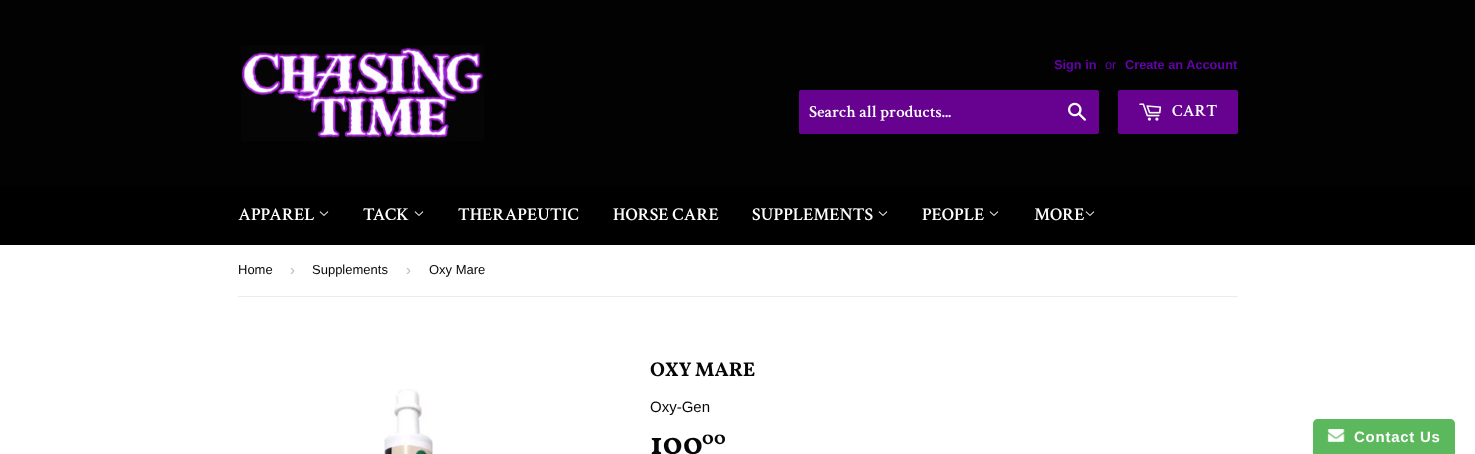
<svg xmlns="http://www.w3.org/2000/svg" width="1475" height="454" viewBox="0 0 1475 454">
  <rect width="100%" height="100%" fill="#ffffff"/>
  <rect x="0" y="0" width="1475" height="186" fill="#020202"/>
  <image x="241" y="45" width="243" height="96" href="img1.png"/>
  <text x="1054" y="69" font-family="Liberation Sans" font-size="12.75" font-weight="bold" fill="#6602ab">Sign in</text>
  <text x="1105" y="69" font-family="Liberation Sans" font-size="12.75" fill="#6602ab">or</text>
  <text x="1125" y="69" font-family="Liberation Sans" font-size="12.75" font-weight="bold" fill="#6602ab">Create an Account</text>
  <rect x="799" y="90" width="300" height="44" rx="2" fill="#670290"/>
  <text x="809" y="117" font-family="Crimson Text" font-size="17" font-weight="600" fill="#ffffff">Search all products...</text>
  <image x="1068" y="102" width="18" height="19" href="img2.png"/>
  <rect x="1118" y="90" width="120" height="44" rx="2" fill="#670290"/>
  <image x="1139" y="103" width="23" height="18" href="img3.png"/>
  <text x="1172" y="116" font-family="Crimson Text" font-size="17" font-weight="600" fill="#ffffff">CART</text>
  <rect x="0" y="186" width="1475" height="59" fill="#000000"/>
  <text x="238" y="220" font-family="Crimson Text" font-size="18" font-weight="600" fill="#ffffff">APPAREL</text>
  <image x="319" y="211" width="10" height="5" href="img4.png"/>
  <text x="363" y="220" font-family="Crimson Text" font-size="18" font-weight="600" fill="#ffffff">TACK</text>
  <image x="414" y="211" width="10" height="5" href="img4.png"/>
  <text x="458" y="220" font-family="Crimson Text" font-size="18" font-weight="600" fill="#ffffff">THERAPEUTIC</text>
  <text x="613" y="220" font-family="Crimson Text" font-size="18" font-weight="600" fill="#ffffff">HORSE CARE</text>
  <text x="752" y="220" font-family="Crimson Text" font-size="18" font-weight="600" fill="#ffffff">SUPPLEMENTS</text>
  <image x="878" y="211" width="10" height="5" href="img4.png"/>
  <text x="922" y="220" font-family="Crimson Text" font-size="18" font-weight="600" fill="#ffffff">PEOPLE</text>
  <image x="989" y="211" width="10" height="5" href="img4.png"/>
  <text x="1034" y="220" font-family="Crimson Text" font-size="18" font-weight="600" fill="#ffffff">MORE</text>
  <image x="1085" y="211" width="10" height="5" href="img4.png"/>
  <rect x="238" y="296" width="1000" height="1" fill="#ececec"/>
  <text x="238" y="274" font-family="Liberation Sans" font-size="13" fill="#070707">Home</text>
  <text x="290" y="275" font-family="Liberation Sans" font-size="15" fill="#bbbbbb">›</text>
  <text x="312" y="274" font-family="Liberation Sans" font-size="13" fill="#070707">Supplements</text>
  <text x="406" y="275" font-family="Liberation Sans" font-size="15" fill="#bbbbbb">›</text>
  <text x="429" y="274" font-family="Liberation Sans" font-size="13" fill="#070707">Oxy Mare</text>
  <image x="384" y="389" width="50" height="65" href="img5.png"/>
  <text x="650" y="376" font-family="Vollkorn" font-size="20" font-weight="bold" fill="#070707">OXY MARE</text>
  <text x="650" y="412" font-family="Liberation Sans" font-size="15" fill="#070707">Oxy-Gen</text>
  <text x="650" y="454" font-family="Vollkorn" font-size="32" font-weight="bold" fill="#070707">100</text>
  <text x="702" y="444" font-family="Vollkorn" font-size="19" font-weight="bold" fill="#070707">00</text>
  <path d="M1318 419H1450C1453 419 1455 421 1455 424V454H1313V424C1313 421 1315 419 1318 419Z" fill="#5cb85c"/>
  <image x="1327" y="429" width="18" height="13" href="img6.png"/>
  <text x="1354" y="442" font-family="Liberation Sans" font-size="15" font-weight="bold" letter-spacing="0.75" fill="#ffffff">Contact Us</text>
</svg>
